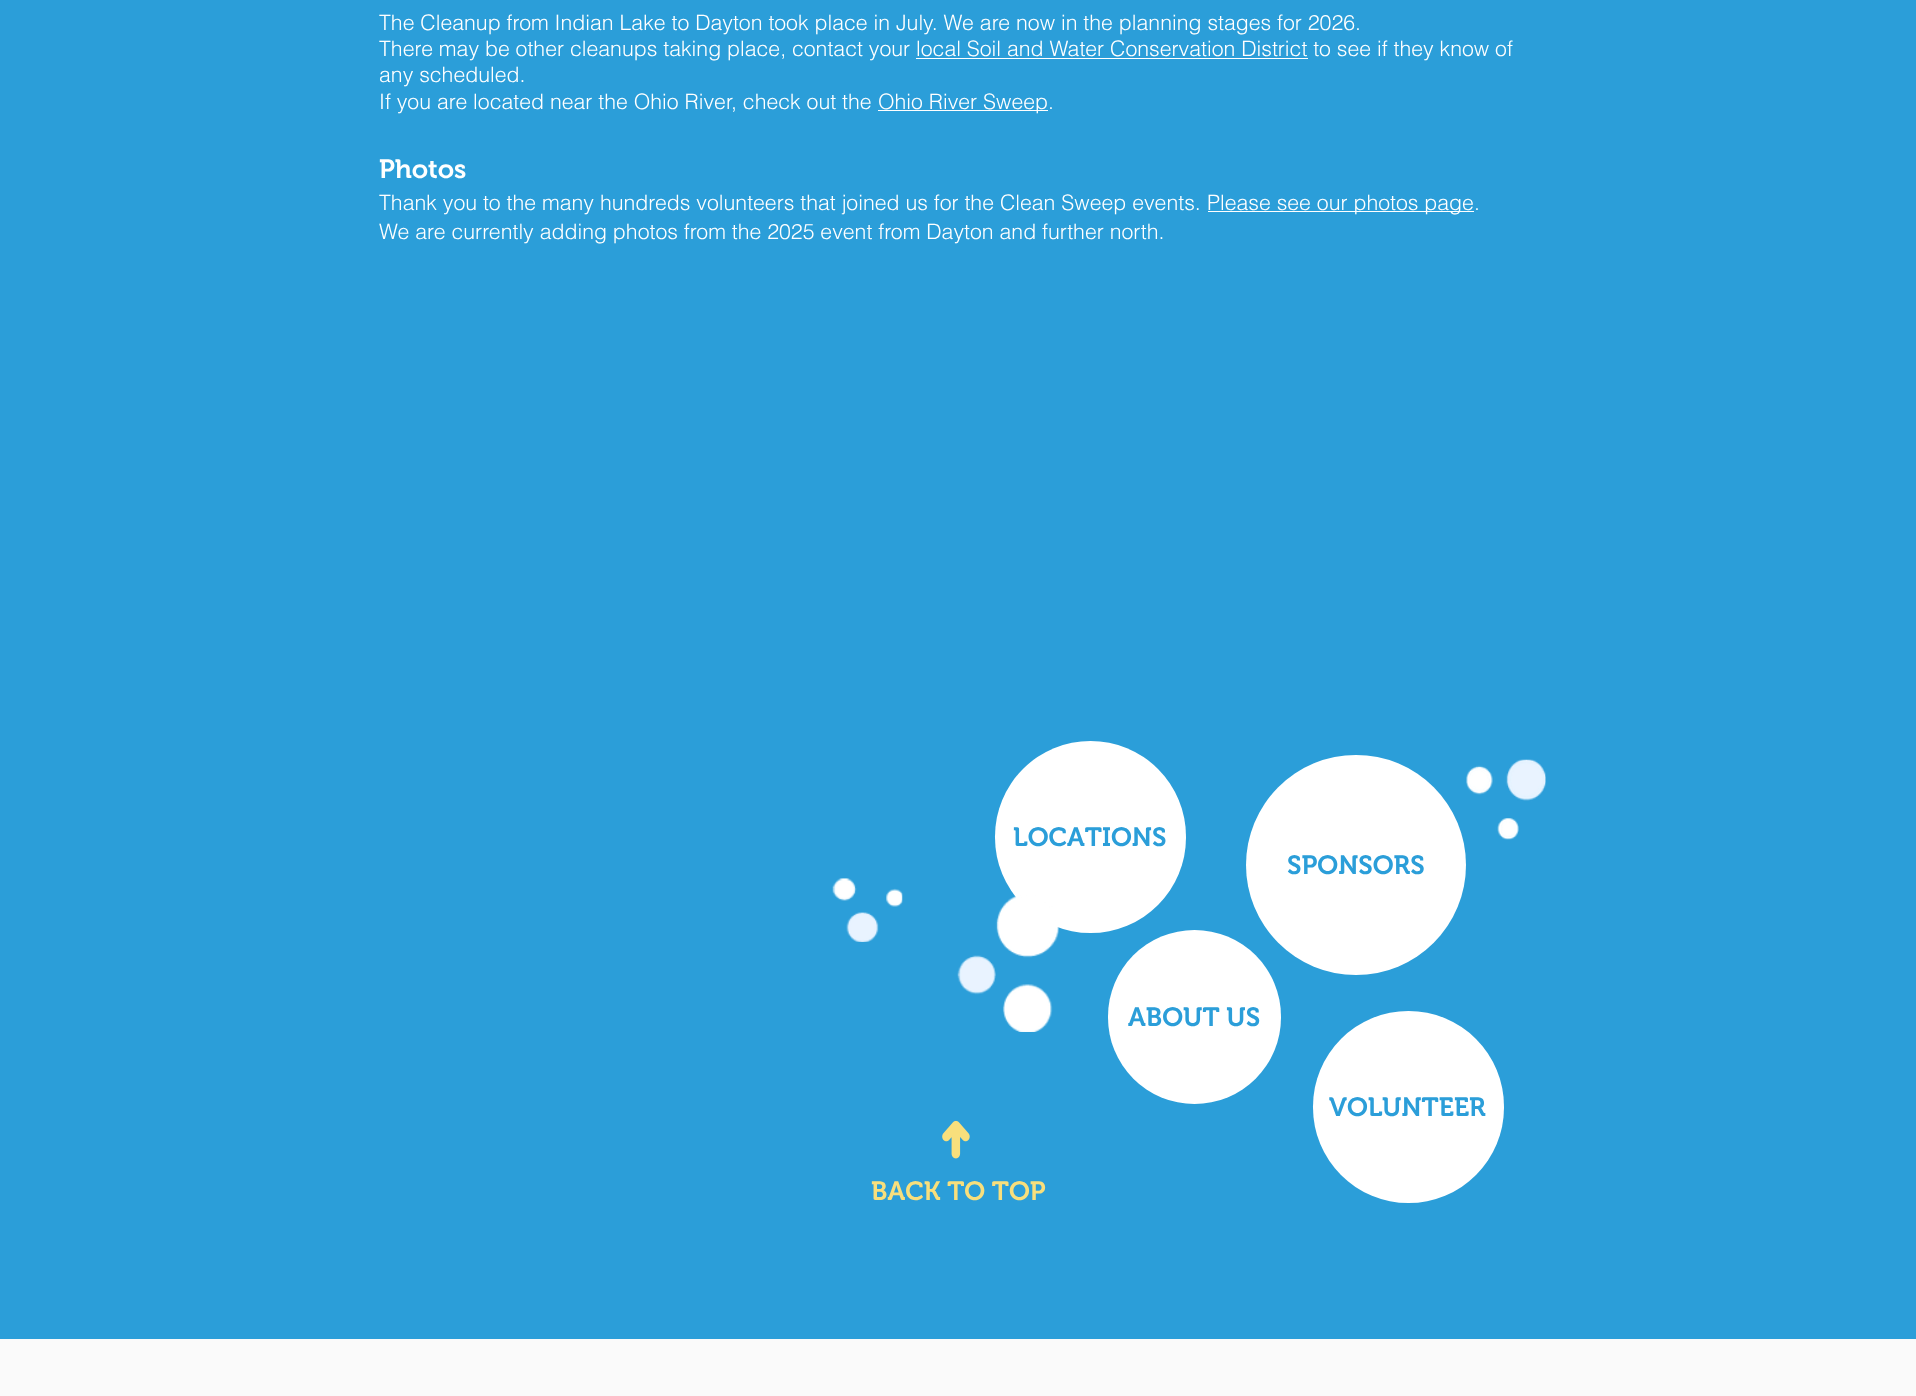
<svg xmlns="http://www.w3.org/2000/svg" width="1916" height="1396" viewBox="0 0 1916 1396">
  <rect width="100%" height="100%" fill="#2b9ed9"/>
  <text x="379" y="30" font-family="helvetica" font-size="21.25" font-weight="300" fill="#ffffff">The Cleanup from Indian Lake to Dayton took place in July. We are now in the planning stages for 2026.</text>
  <text x="379" y="56" font-family="helvetica" font-size="21.25" font-weight="300" fill="#ffffff">There may be other cleanups taking place, contact your local Soil and Water Conservation District to see if they know of</text>
  <rect x="916" y="58" width="392" height="1" fill="#ffffff"/>
  <text x="379" y="82" font-family="helvetica" font-size="21.25" font-weight="300" fill="#ffffff">any scheduled.</text>
  <text x="379" y="109" font-family="helvetica" font-size="21.25" font-weight="300" fill="#ffffff">If you are located near the Ohio River, check out the</text>
  <rect x="878" y="110" width="170" height="1" fill="#ffffff"/>
  <text x="878" y="109" font-family="helvetica" font-size="21.25" font-weight="300" fill="#ffffff">Ohio River Sweep.</text>
  <text x="379" y="178" font-family="'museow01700'" font-size="26.25" font-weight="600" fill="#ffffff">Photos</text>
  <text x="379" y="210" font-family="helvetica" font-size="21.25" font-weight="300" fill="#ffffff">Thank you to the many hundreds volunteers that joined us for the Clean Sweep events.</text>
  <rect x="1208" y="211" width="266" height="1" fill="#ffffff"/>
  <text x="1207" y="210" font-family="helvetica" font-size="21.25" font-weight="300" fill="#ffffff">Please see our photos page.</text>
  <text x="379" y="239" font-family="helvetica" font-size="21.25" font-weight="300" fill="#ffffff">We are currently adding photos from the 2025 event from Dayton and further north.</text>
  <rect x="995" y="741" width="191" height="192" rx="95.5" fill="#ffffff"/>
  <text x="1013" y="846" font-family="'museow01700'" font-size="26.25" font-weight="600" fill="#2b9ed9">LOCATIONS</text>
  <image x="1466" y="759" width="80" height="81" href="img1.png"/>
  <rect x="1108" y="930" width="173" height="174" rx="86.5" fill="#ffffff"/>
  <circle cx="1356" cy="865" r="110" fill="#ffffff"/>
  <text x="1287" y="874" font-family="'museow01700'" font-size="26.25" font-weight="600" fill="#2b9ed9">SPONSORS</text>
  <image x="832" y="878" width="71" height="64" href="img2.png"/>
  <image x="957" y="895" width="102" height="137" href="img3.png"/>
  <text x="1128" y="1026" font-family="'museow01700'" font-size="26.25" font-weight="600" fill="#2b9ed9">ABOUT US</text>
  <rect x="1313" y="1011" width="191" height="192" rx="95.5" fill="#ffffff"/>
  <text x="1329" y="1116" font-family="'museow01700'" font-size="26.25" font-weight="600" fill="#2b9ed9">VOLUNTEER</text>
  <image x="942" y="1120" width="28" height="39" href="img4.png"/>
  <text x="871" y="1200" font-family="'museow01700'" font-size="26.25" font-weight="600" fill="#f8df7c">BACK TO TOP</text>
  <rect x="0" y="1339" width="1916" height="57" fill="#fafafa"/>
</svg>
